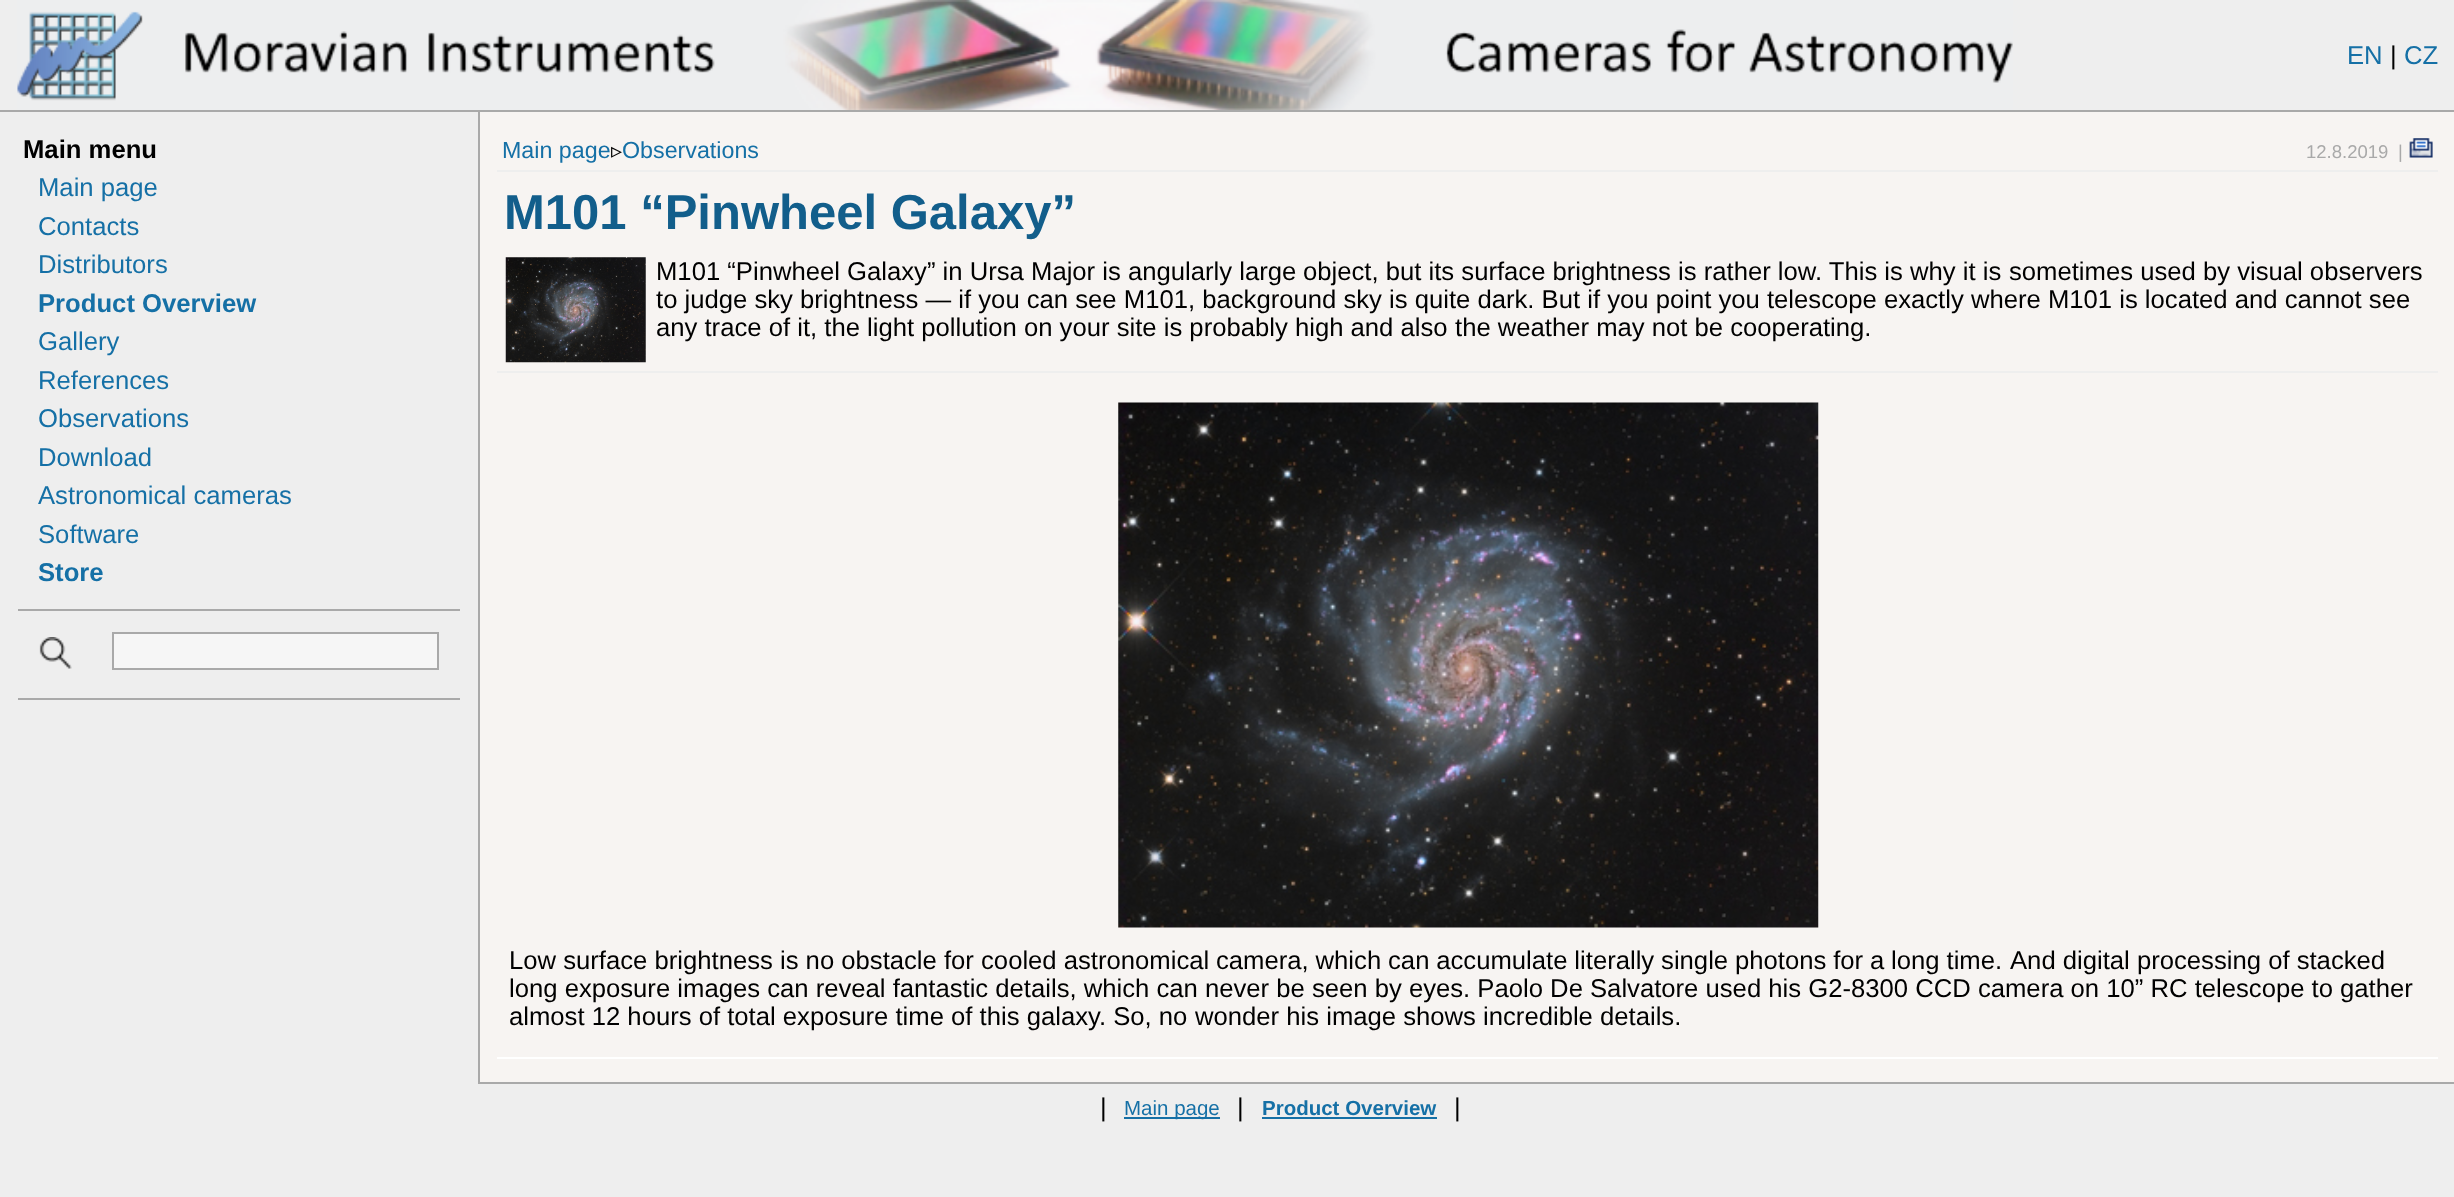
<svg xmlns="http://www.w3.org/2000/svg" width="2454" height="1197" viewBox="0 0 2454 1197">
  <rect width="100%" height="100%" fill="#eeeeee"/>
  <image x="17" y="0" width="1996" height="110" href="img1.png"/>
  <rect x="0" y="110" width="2454" height="2" fill="#a9a9a9"/>
  <text x="2347" y="64" font-family="Liberation Sans" font-size="25.67" fill="#1570a6">EN</text>
  <text x="2390" y="64" font-family="Liberation Sans" font-size="25.67" fill="#000000">|</text>
  <text x="2404" y="64" font-family="Liberation Sans" font-size="25.67" fill="#1570a6">CZ</text>
  <text x="23" y="158" font-family="Liberation Sans" font-size="25.67" font-weight="bold" fill="#000000">Main menu</text>
  <text x="38" y="196" font-family="Liberation Sans" font-size="25.67" fill="#1570a6">Main page</text>
  <text x="38" y="235" font-family="Liberation Sans" font-size="25.67" fill="#1570a6">Contacts</text>
  <text x="38" y="273" font-family="Liberation Sans" font-size="25.67" fill="#1570a6">Distributors</text>
  <text x="38" y="312" font-family="Liberation Sans" font-size="25.67" font-weight="bold" fill="#1570a6">Product Overview</text>
  <text x="38" y="350" font-family="Liberation Sans" font-size="25.67" fill="#1570a6">Gallery</text>
  <text x="38" y="389" font-family="Liberation Sans" font-size="25.67" fill="#1570a6">References</text>
  <text x="38" y="427" font-family="Liberation Sans" font-size="25.67" fill="#1570a6">Observations</text>
  <text x="38" y="466" font-family="Liberation Sans" font-size="25.67" fill="#1570a6">Download</text>
  <text x="38" y="504" font-family="Liberation Sans" font-size="25.67" fill="#1570a6">Astronomical cameras</text>
  <text x="38" y="543" font-family="Liberation Sans" font-size="25.67" fill="#1570a6">Software</text>
  <text x="38" y="581" font-family="Liberation Sans" font-size="25.67" font-weight="bold" fill="#1570a6">Store</text>
  <rect x="18" y="609" width="442" height="2" fill="#a9a9a9"/>
  <rect x="18" y="698" width="442" height="2" fill="#a9a9a9"/>
  <image x="39" y="637" width="33" height="32" href="img2.png"/>
  <rect x="113" y="633" width="325" height="36" fill="#f6f6f6" stroke="#a9a9a9" stroke-width="2"/>
  <rect x="480" y="112" width="1974" height="970" fill="#f7f4f2"/>
  <rect x="478" y="1082" width="1976" height="2" fill="#a9a9a9"/>
  <rect x="478" y="112" width="2" height="971" fill="#a9a9a9"/>
  <rect x="497" y="170" width="1941" height="2" fill="#eeeeee"/>
  <text x="502" y="158" font-family="Liberation Sans" font-size="23.25" fill="#1570a6">Main page</text>
  <text x="611" y="158" font-family="DejaVu Sans" font-size="22" fill="#000000">▹</text>
  <text x="622" y="158" font-family="Liberation Sans" font-size="23.25" fill="#1570a6">Observations</text>
  <text x="2306" y="158" font-family="Liberation Sans" font-size="18.5" fill="#a9a9a9">12.8.2019</text>
  <text x="2398" y="158" font-family="Liberation Sans" font-size="18.5" fill="#a9a9a9">|</text>
  <image x="2409" y="138" width="24" height="20" href="img3.png"/>
  <text x="504" y="229" font-family="Liberation Sans" font-size="49" font-weight="bold" fill="#125e8b">M101 “Pinwheel Galaxy”</text>
  <rect x="497" y="371" width="1941" height="2" fill="#eeeeee"/>
  <image x="505" y="257" width="141" height="106" href="img4.png"/>
  <text x="656" y="280" font-family="Liberation Sans" font-size="25.67" fill="#000000">M101 “Pinwheel Galaxy” in Ursa Major is angularly large</text>
  <text x="1303" y="280" font-family="Liberation Sans" font-size="25.67" fill="#000000">object, but its surface brightness is rather low. This is why it is</text>
  <text x="2009" y="280" font-family="Liberation Sans" font-size="25.67" fill="#000000">sometimes used by visual observers</text>
  <text x="656" y="308" font-family="Liberation Sans" font-size="25.67" fill="#000000">to judge sky brightness — if you can see M101, background sky is quite dark. But if you point you telescope exactly where M101 is located and cannot see</text>
  <text x="656" y="336" font-family="Liberation Sans" font-size="25.67" fill="#000000">any trace of it, the light pollution on your site is probably high and also</text>
  <text x="1455" y="336" font-family="Liberation Sans" font-size="25.67" fill="#000000">the weather may not be cooperating.</text>
  <rect x="497" y="1057" width="1941" height="2" fill="#ffffff"/>
  <image x="1118" y="402" width="701" height="526" href="img5.png"/>
  <text x="509" y="969" font-family="Liberation Sans" font-size="25.67" fill="#000000">Low surface brightness is no obstacle for cooled astronomical</text>
  <text x="1216" y="969" word-spacing="-0.25" font-family="Liberation Sans" font-size="25.67" fill="#000000">camera, which can accumulate literally single photons for a long time.</text>
  <text x="2010" y="969" font-family="Liberation Sans" font-size="25.67" fill="#000000">And digital processing of stacked</text>
  <text x="509" y="997" font-family="Liberation Sans" font-size="25.67" fill="#000000">long exposure images can reveal fantastic details, which can never be seen by eyes. Paolo De</text>
  <text x="1590" y="997" font-family="Liberation Sans" font-size="25.67" fill="#000000">Salvatore used his G2-8300 CCD camera on 10” RC telescope to</text>
  <text x="2340" y="997" font-family="Liberation Sans" font-size="25.67" fill="#000000">gather</text>
  <text x="509" y="1025" font-family="Liberation Sans" font-size="25.67" fill="#000000">almost 12 hours of total exposure time of this galaxy. So, no</text>
  <text x="1195" y="1025" font-family="Liberation Sans" font-size="25.67" fill="#000000">wonder his image shows incredible details.</text>
  <text x="1100" y="1116" font-family="Liberation Sans" font-size="25.67" fill="#000000">|</text>
  <rect x="1124" y="1117" width="96" height="2" fill="#1570a6"/>
  <text x="1124" y="1115" font-family="Liberation Sans" font-size="20.5" fill="#1570a6">Main page</text>
  <text x="1237" y="1116" font-family="Liberation Sans" font-size="25.67" fill="#000000">|</text>
  <text x="1262" y="1115" font-family="Liberation Sans" font-size="20.5" font-weight="bold" fill="#1570a6">Product Overview</text>
  <rect x="1262" y="1117" width="175" height="2" fill="#1570a6"/>
  <text x="1454" y="1116" font-family="Liberation Sans" font-size="25.67" fill="#000000">|</text>
</svg>
